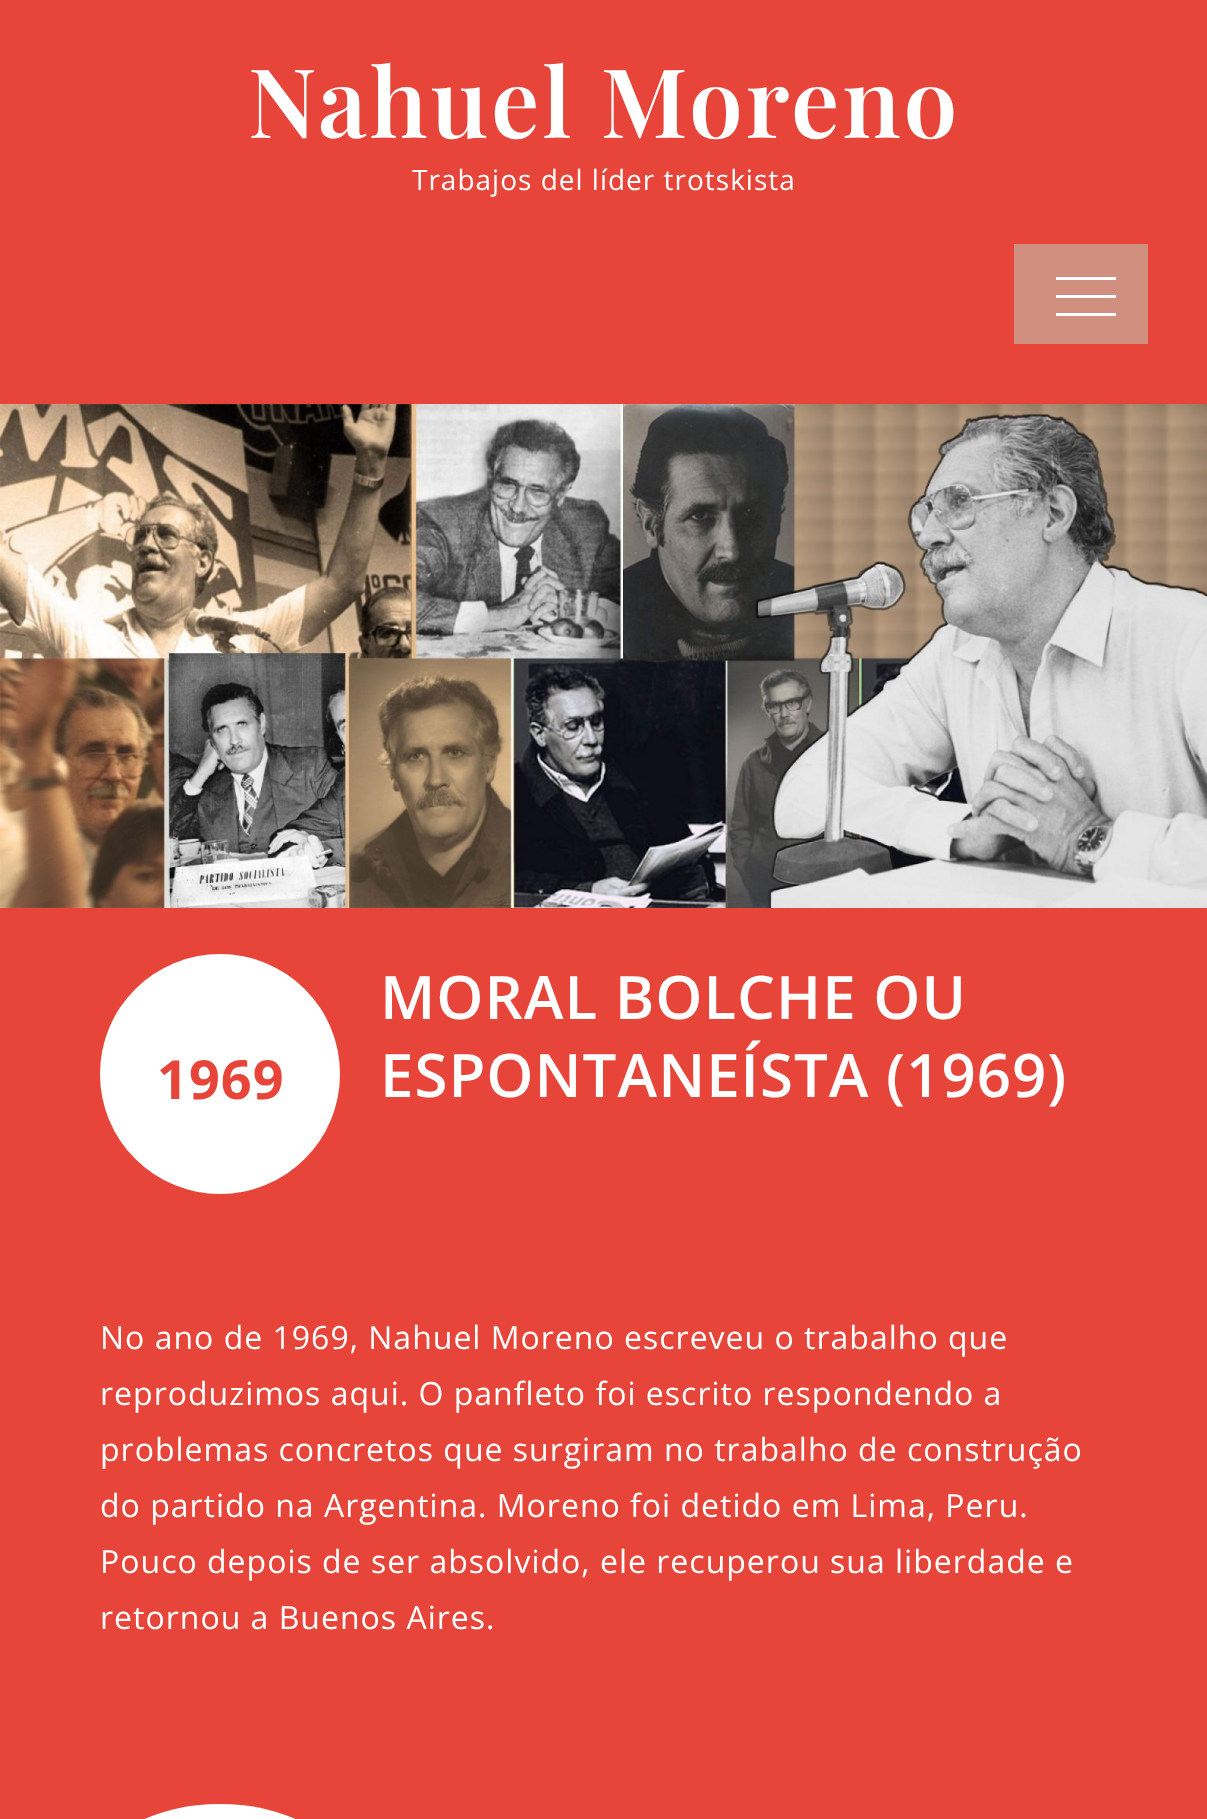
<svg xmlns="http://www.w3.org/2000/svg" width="1207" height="1819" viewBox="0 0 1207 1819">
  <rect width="100%" height="100%" fill="#e7453a"/>
  <text x="248" y="138" font-family="Playfair Display" font-size="96" font-weight="600" letter-spacing="3" fill="#ffffff">Nahuel Moreno</text>
  <text x="412" y="190" font-family="Open Sans" font-size="28" letter-spacing="1" fill="#ffffff">Trabajos del líder trotskista</text>
  <rect x="1014" y="244" width="134" height="100" fill="#d18f7f"/>
  <rect x="1056" y="277" width="60" height="3" fill="#ffffff"/>
  <rect x="1056" y="295" width="60" height="3" fill="#ffffff"/>
  <rect x="1056" y="313" width="60" height="3" fill="#ffffff"/>
  <image x="0" y="404" width="1207" height="504" href="img1.png"/>
  <circle cx="220" cy="1074" r="120" fill="#ffffff"/>
  <text x="157" y="1099" font-family="Open Sans" font-size="54" font-weight="bold" letter-spacing="1" fill="#e7453a">1969</text>
  <text x="380" y="1019" font-family="Open Sans" font-size="60" font-weight="600" letter-spacing="1" fill="#ffffff">MORAL BOLCHE OU</text>
  <text x="380" y="1097" font-family="Open Sans" font-size="60" font-weight="600" letter-spacing="1" fill="#ffffff">ESPONTANEÍSTA (1969)</text>
  <text x="100" y="1349" font-family="Open Sans" font-size="32" letter-spacing="1" fill="#ffffff">No ano de 1969, Nahuel Moreno escreveu o trabalho que</text>
  <text x="100" y="1405" font-family="Open Sans" font-size="32" letter-spacing="1" fill="#ffffff">reproduzimos aqui. O panfleto foi escrito respondendo a</text>
  <text x="100" y="1461" font-family="Open Sans" font-size="32" letter-spacing="1" fill="#ffffff">problemas concretos que surgiram no trabalho de construção</text>
  <text x="100" y="1517" font-family="Open Sans" font-size="32" letter-spacing="1" fill="#ffffff">do partido na Argentina. Moreno foi detido em Lima, Peru.</text>
  <text x="100" y="1573" font-family="Open Sans" font-size="32" letter-spacing="1" fill="#ffffff">Pouco depois de ser absolvido, ele recuperou sua liberdade e</text>
  <text x="100" y="1629" font-family="Open Sans" font-size="32" letter-spacing="1" fill="#ffffff">retornou a Buenos Aires.</text>
  <rect x="100" y="1804" width="240" height="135" rx="120" fill="#ffffff"/>
</svg>
